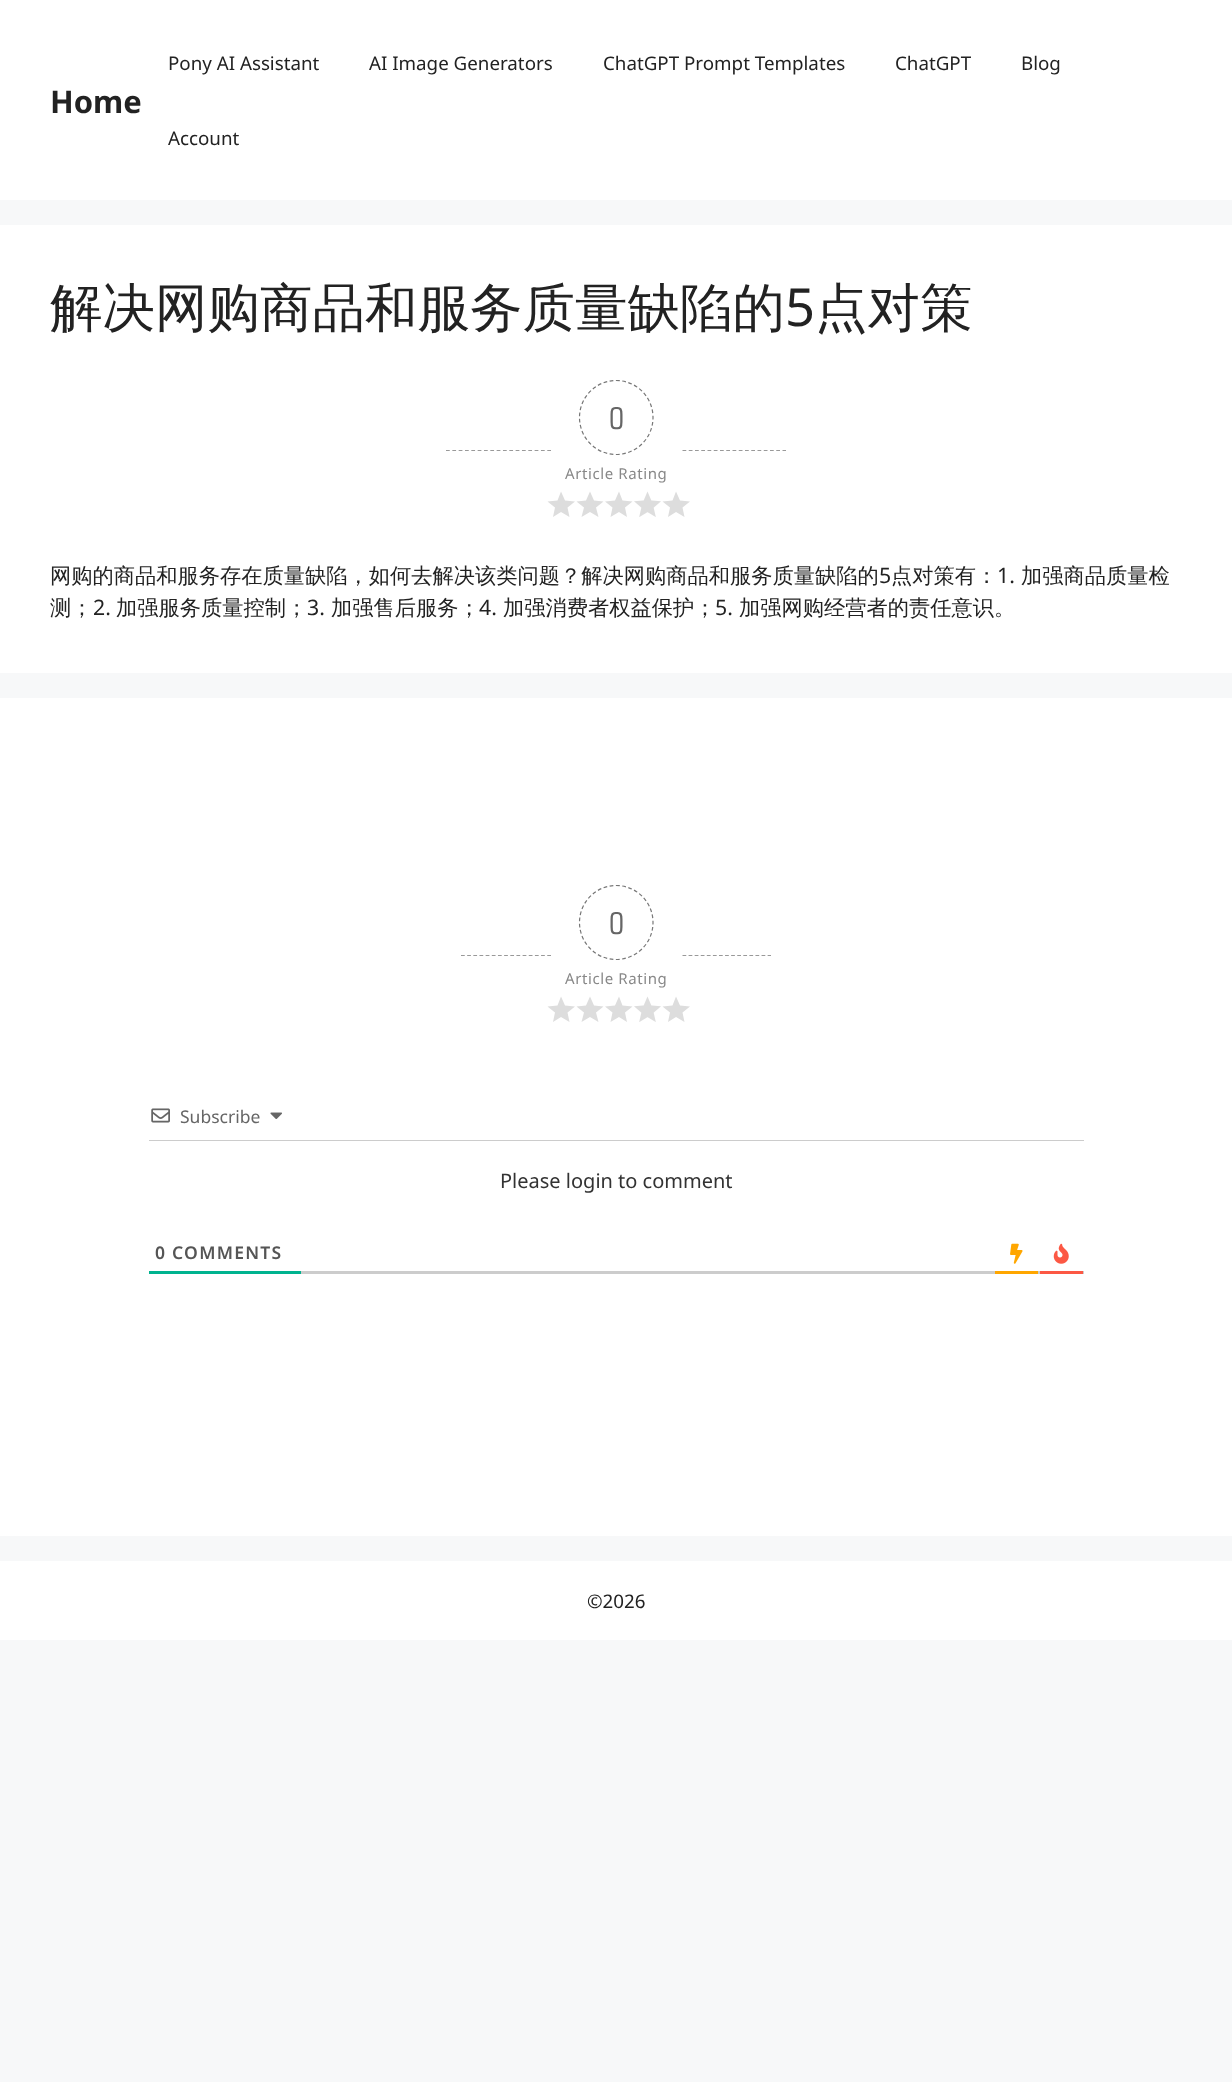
<svg xmlns="http://www.w3.org/2000/svg" width="1232" height="2082" viewBox="0 0 1232 2082">
  <rect width="100%" height="100%" fill="#f7f8f9"/>
  <rect x="0" y="0" width="1232" height="200" fill="#ffffff"/>
  <text x="50" y="113" font-family="Noto Sans" font-size="31" font-weight="bold" fill="#222222">Home</text>
  <text x="168" y="70" font-family="Noto Sans" font-size="18.75" fill="#222222">Pony AI Assistant</text>
  <text x="369" y="70" font-family="Noto Sans" font-size="18.75" fill="#222222">AI Image Generators</text>
  <text x="603" y="70" font-family="Noto Sans" font-size="18.75" fill="#222222">ChatGPT Prompt Templates</text>
  <text x="895" y="70" font-family="Noto Sans" font-size="18.75" fill="#222222">ChatGPT</text>
  <text x="1021" y="70" font-family="Noto Sans" font-size="18.75" fill="#222222">Blog</text>
  <text x="168" y="145" font-family="Noto Sans" font-size="18.75" fill="#222222">Account</text>
  <rect x="0" y="225" width="1232" height="448" fill="#ffffff"/>
  <text x="50" y="326" font-family="WenQuanYi Zen Hei" font-size="52.5" font-weight="500" fill="#222222">解决网购商品和服务质量缺陷的</text>
  <text x="785" y="326" font-family="Noto Sans" font-size="52.5" fill="#222222">5</text>
  <text x="815" y="326" font-family="WenQuanYi Zen Hei" font-size="52.5" font-weight="500" fill="#222222">点对策</text>
  <path d="M446 450.5H551" fill="none" stroke="#999999" stroke-width="1.2" stroke-dasharray="3.75 2.58"/>
  <path d="M616 380.5C636.5 380.5 653 397 653 417.5C653 438 636.5 454.5 616 454.5C596 454.5 579.5 438 579.5 417.5C579.5 397 596 380.5 616 380.5Z" fill="none" stroke="#777777" stroke-width="1.2" stroke-dasharray="3.75 2.5"/>
  <text x="609" y="429" font-family="'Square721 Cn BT'" font-size="30" fill="#666666">0</text>
  <text x="565" y="479" font-family="Noto Sans" font-size="15" letter-spacing="0.6" fill="#888888">Article Rating</text>
  <path d="M561 512L569.5 517L567.5 507.5L575 501.5L565 500.5L561 491.5L557.5 500.5L547.5 501.5L555 507.5L553 517ZM590 512L598.5 517L596 507.5L603.5 501.5L594 500.5L590 491.5L586 500.5L576.5 501.5L584 507.5L581.5 517Z" fill="#dddddd"/>
  <path d="M619 512L627 517L625 507.5L632.5 501.5L622.5 500.5L619 491.5L615 500.5L605 501.5L612.5 507.5L610.5 517Z" fill="#dddddd"/>
  <image x="634" y="491" width="27" height="26" href="img1.png"/>
  <path d="M676 512L684.5 517L682.5 507.5L690 501.5L680 500.5L676 491.5L672.5 500.5L662.5 501.5L670 507.5L668 517Z" fill="#dddddd"/>
  <path d="M682.5 450.5H786" fill="none" stroke="#999999" stroke-width="1.2" stroke-dasharray="3.75 2.5"/>
  <text x="50" y="583" font-family="WenQuanYi Zen Hei" font-size="21.25" font-weight="500" fill="#222222">网购的商品和服务存在质量缺陷，如何去解决该类问题？解决网购商品和服务质量缺陷的</text>
  <text x="879" y="583" font-family="Noto Sans" font-size="21.25" fill="#222222">5</text>
  <text x="891" y="583" font-family="WenQuanYi Zen Hei" font-size="21.25" font-weight="500" fill="#222222">点对策有：</text>
  <text x="997" y="583" font-family="Noto Sans" font-size="21.25" fill="#222222">1.</text>
  <text x="1021" y="583" font-family="WenQuanYi Zen Hei" font-size="21.25" font-weight="500" fill="#222222">加强商品质量检</text>
  <text x="50" y="615" font-family="WenQuanYi Zen Hei" font-size="21.25" font-weight="500" fill="#222222">测；</text>
  <text x="93" y="615" font-family="Noto Sans" font-size="21.25" fill="#222222">2.</text>
  <text x="116" y="615" font-family="WenQuanYi Zen Hei" font-size="21.25" font-weight="500" fill="#222222">加强服务质量控制；</text>
  <text x="307" y="615" font-family="Noto Sans" font-size="21.25" fill="#222222">3.</text>
  <text x="331" y="615" font-family="WenQuanYi Zen Hei" font-size="21.25" font-weight="500" fill="#222222">加强售后服务；</text>
  <text x="479" y="615" font-family="Noto Sans" font-size="21.25" fill="#222222">4.</text>
  <text x="503" y="615" font-family="WenQuanYi Zen Hei" font-size="21.25" font-weight="500" fill="#222222">加强消费者权益保护；</text>
  <text x="715" y="615" font-family="Noto Sans" font-size="21.25" fill="#222222">5.</text>
  <text x="739" y="615" font-family="WenQuanYi Zen Hei" font-size="21.25" font-weight="500" fill="#222222">加强网购经营者的责任意识。</text>
  <rect x="0" y="698" width="1232" height="838" fill="#ffffff"/>
  <path d="M461 955.5H551" fill="none" stroke="#999999" stroke-width="1.2" stroke-dasharray="3.75 2.41"/>
  <path d="M616 885.5C636.5 885.5 653 902 653 922.5C653 943 636.5 959.5 616 959.5C596 959.5 579.5 943 579.5 922.5C579.5 902 596 885.5 616 885.5Z" fill="none" stroke="#777777" stroke-width="1.2" stroke-dasharray="3.75 2.5"/>
  <text x="609" y="934" font-family="'Square721 Cn BT'" font-size="30" fill="#666666">0</text>
  <text x="565" y="984" font-family="Noto Sans" font-size="15" letter-spacing="0.6" fill="#888888">Article Rating</text>
  <path d="M561 1017L569.5 1022L567.5 1012.5L575 1006.5L565 1005.5L561 996.5L557.5 1005.5L547.5 1006.5L555 1012.5L553 1022ZM590 1017L598.5 1022L596 1012.5L603.5 1006.5L594 1005.5L590 996.5L586 1005.5L576.5 1006.5L584 1012.5L581.5 1022Z" fill="#dddddd"/>
  <path d="M619 1017L627 1022L625 1012.5L632.5 1006.5L622.5 1005.5L619 996.5L615 1005.5L605 1006.5L612.5 1012.5L610.5 1022Z" fill="#dddddd"/>
  <image x="634" y="996" width="27" height="26" href="img1.png"/>
  <path d="M676 1017L684.5 1022L682.5 1012.5L690 1006.5L680 1005.5L676 996.5L672.5 1005.5L662.5 1006.5L670 1012.5L668 1022Z" fill="#dddddd"/>
  <path d="M682.5 955.5H771" fill="none" stroke="#999999" stroke-width="1.2" stroke-dasharray="3.75 2.33"/>
  <rect x="149" y="1140" width="935" height="1" fill="#cccccc"/>
  <image x="151" y="1108" width="19" height="15" href="img2.png"/>
  <text x="180" y="1123" font-family="Noto Sans" font-size="17.5" fill="#666666">Subscribe</text>
  <image x="270" y="1112" width="12" height="7" href="img3.png"/>
  <text x="500" y="1188" font-family="Noto Sans" font-size="20" fill="#333333">Please login to comment</text>
  <rect x="301" y="1271" width="783" height="3" fill="#cccccc"/>
  <rect x="149" y="1271" width="152" height="3" fill="#00b38f"/>
  <text x="155" y="1259" font-family="Noto Sans" font-size="17.5" font-weight="600" letter-spacing="1.25" fill="#555555">0 COMMENTS</text>
  <rect x="995" y="1271" width="43" height="3" fill="#ffa600"/>
  <image x="1010" y="1243" width="13" height="21" href="img4.png"/>
  <rect x="1040" y="1271" width="43" height="3" fill="#fc5844"/>
  <image x="1053" y="1243" width="16" height="21" href="img5.png"/>
  <rect x="0" y="1561" width="1232" height="79" fill="#ffffff"/>
  <text x="587" y="1608" font-family="Noto Sans" font-size="18.75" fill="#222222">©2026</text>
</svg>
